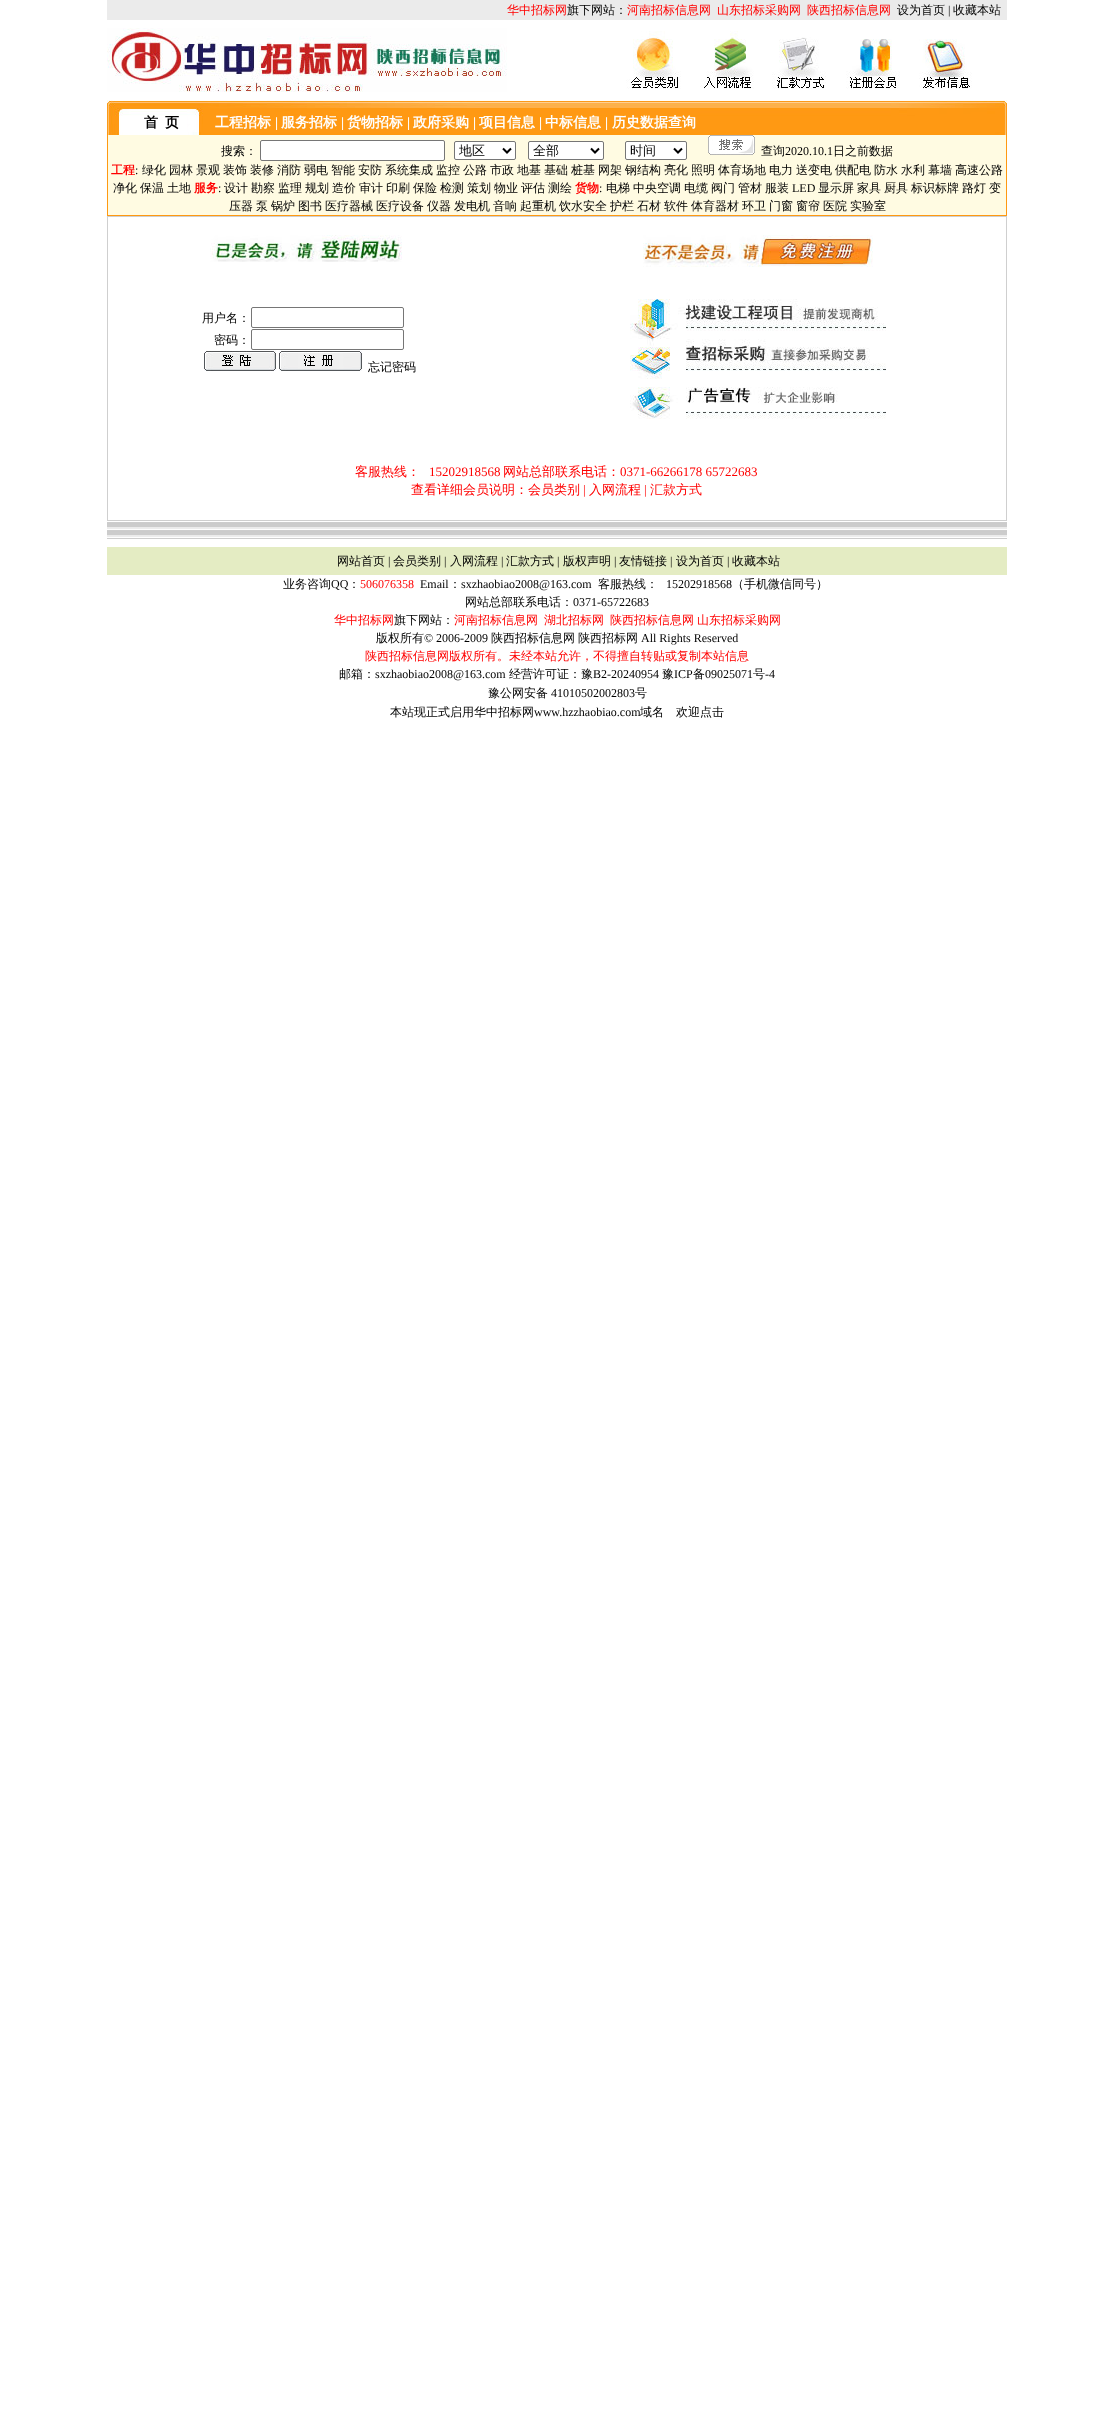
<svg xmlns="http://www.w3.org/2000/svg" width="1114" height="2418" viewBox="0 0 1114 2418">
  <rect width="100%" height="100%" fill="#ffffff"/>
  <rect x="107" y="0" width="900" height="20" fill="#ebebeb"/>
  <text x="507" y="14" font-family="WenQuanYi Zen Hei" font-size="12" font-weight="500" fill="#ff0000">华中招标网</text>
  <text x="567" y="14" font-family="WenQuanYi Zen Hei" font-size="12" font-weight="500" fill="#000000">旗下网站：</text>
  <text x="627" y="14" font-family="WenQuanYi Zen Hei" font-size="12" font-weight="500" fill="#ff0000">河南招标信息网</text>
  <text x="717" y="14" font-family="WenQuanYi Zen Hei" font-size="12" font-weight="500" fill="#ff0000">山东招标采购网</text>
  <text x="807" y="14" font-family="WenQuanYi Zen Hei" font-size="12" font-weight="500" fill="#ff0000">陕西招标信息网</text>
  <text x="897" y="14" font-family="WenQuanYi Zen Hei" font-size="12" font-weight="500" fill="#000000">设为首页</text>
  <text x="948" y="14" font-family="Liberation Serif" font-size="12" fill="#000000">|</text>
  <text x="953" y="14" font-family="WenQuanYi Zen Hei" font-size="12" font-weight="500" fill="#000000">收藏本站</text>
  <image x="107" y="28" width="400" height="64" href="img1.png"/>
  <image x="626" y="31" width="55" height="58" href="img2.png"/>
  <image x="700" y="31" width="54" height="58" href="img3.png"/>
  <image x="772" y="37" width="54" height="52" href="img4.png"/>
  <image x="846" y="39" width="54" height="50" href="img5.png"/>
  <image x="919" y="39" width="53" height="50" href="img6.png"/>
  <image x="107" y="100" width="900" height="35" href="img7.png"/>
  <text x="144" y="127" font-family="WenQuanYi Zen Hei" font-size="14" font-weight="bold" fill="#000000">首</text>
  <text x="165" y="127" font-family="WenQuanYi Zen Hei" font-size="14" font-weight="bold" fill="#000000">页</text>
  <text x="215" y="127" font-family="WenQuanYi Zen Hei" font-size="14" font-weight="bold" fill="#ffffff">工程招标</text>
  <text x="275" y="127" font-family="Liberation Serif" font-size="14" font-weight="bold" fill="#ffffff">|</text>
  <text x="281" y="127" font-family="WenQuanYi Zen Hei" font-size="14" font-weight="bold" fill="#ffffff">服务招标</text>
  <text x="341" y="127" font-family="Liberation Serif" font-size="14" font-weight="bold" fill="#ffffff">|</text>
  <text x="347" y="127" font-family="WenQuanYi Zen Hei" font-size="14" font-weight="bold" fill="#ffffff">货物招标</text>
  <text x="407" y="127" font-family="Liberation Serif" font-size="14" font-weight="bold" fill="#ffffff">|</text>
  <text x="413" y="127" font-family="WenQuanYi Zen Hei" font-size="14" font-weight="bold" fill="#ffffff">政府采购</text>
  <text x="473" y="127" font-family="Liberation Serif" font-size="14" font-weight="bold" fill="#ffffff">|</text>
  <text x="479" y="127" font-family="WenQuanYi Zen Hei" font-size="14" font-weight="bold" fill="#ffffff">项目信息</text>
  <text x="539" y="127" font-family="Liberation Serif" font-size="14" font-weight="bold" fill="#ffffff">|</text>
  <text x="545" y="127" font-family="WenQuanYi Zen Hei" font-size="14" font-weight="bold" fill="#ffffff">中标信息</text>
  <text x="605" y="127" font-family="Liberation Serif" font-size="14" font-weight="bold" fill="#ffffff">|</text>
  <text x="612" y="127" font-family="WenQuanYi Zen Hei" font-size="14" font-weight="bold" fill="#ffffff">历史数据查询</text>
  <rect x="1006" y="135" width="1" height="81" fill="#ff9911"/>
  <rect x="107" y="215" width="900" height="1" fill="#ff9911"/>
  <rect x="107" y="135" width="1" height="81" fill="#ff9911"/>
  <rect x="108" y="135" width="898" height="80" fill="#fffbe2"/>
  <text x="221" y="155" font-family="WenQuanYi Zen Hei" font-size="12" font-weight="500" fill="#000000">搜索：</text>
  <rect x="260.5" y="140.5" width="184" height="20" rx="1.5" fill="#ffffff" stroke="#767676"/>
  <rect x="454.5" y="141.5" width="61" height="18" rx="1.5" fill="#ffffff" stroke="#767676"/>
  <path d="M503 148.5L507 152.5L511 148.5" fill="none" stroke="#000000" stroke-width="2"/>
  <text x="459" y="155" font-family="WenQuanYi Zen Hei" font-size="13" font-weight="500" fill="#000000">地区</text>
  <rect x="528.5" y="141.5" width="75" height="18" rx="1.5" fill="#ffffff" stroke="#767676"/>
  <path d="M591 148.5L595 152.5L599 148.5" fill="none" stroke="#000000" stroke-width="2"/>
  <text x="533" y="155" font-family="WenQuanYi Zen Hei" font-size="13" font-weight="500" fill="#000000">全部</text>
  <rect x="625.5" y="141.5" width="61" height="18" rx="1.5" fill="#ffffff" stroke="#767676"/>
  <path d="M674 148.5L678 152.5L682 148.5" fill="none" stroke="#000000" stroke-width="2"/>
  <text x="630" y="155" font-family="WenQuanYi Zen Hei" font-size="13" font-weight="500" fill="#000000">时间</text>
  <image x="708" y="135" width="47" height="20" href="img8.png"/>
  <text x="761" y="155" font-family="WenQuanYi Zen Hei" font-size="12" font-weight="500" fill="#000000">查询</text>
  <text x="785" y="155" font-family="Liberation Serif" font-size="12" fill="#000000">2020.10.1</text>
  <text x="833" y="155" font-family="WenQuanYi Zen Hei" font-size="12" font-weight="500" fill="#000000">日之前数据</text>
  <text x="111" y="174" font-family="WenQuanYi Zen Hei" font-size="12" font-weight="bold" fill="#ff0000">工程</text>
  <text x="135" y="174" font-family="Liberation Serif" font-size="12" fill="#000000">:</text>
  <text x="142" y="174" font-family="WenQuanYi Zen Hei" font-size="12" font-weight="500" fill="#000000">绿化</text>
  <text x="169" y="174" font-family="WenQuanYi Zen Hei" font-size="12" font-weight="500" fill="#000000">园林</text>
  <text x="196" y="174" font-family="WenQuanYi Zen Hei" font-size="12" font-weight="500" fill="#000000">景观</text>
  <text x="223" y="174" font-family="WenQuanYi Zen Hei" font-size="12" font-weight="500" fill="#000000">装饰</text>
  <text x="250" y="174" font-family="WenQuanYi Zen Hei" font-size="12" font-weight="500" fill="#000000">装修</text>
  <text x="277" y="174" font-family="WenQuanYi Zen Hei" font-size="12" font-weight="500" fill="#000000">消防</text>
  <text x="304" y="174" font-family="WenQuanYi Zen Hei" font-size="12" font-weight="500" fill="#000000">弱电</text>
  <text x="331" y="174" font-family="WenQuanYi Zen Hei" font-size="12" font-weight="500" fill="#000000">智能</text>
  <text x="358" y="174" font-family="WenQuanYi Zen Hei" font-size="12" font-weight="500" fill="#000000">安防</text>
  <text x="385" y="174" font-family="WenQuanYi Zen Hei" font-size="12" font-weight="500" fill="#000000">系统集成</text>
  <text x="436" y="174" font-family="WenQuanYi Zen Hei" font-size="12" font-weight="500" fill="#000000">监控</text>
  <text x="463" y="174" font-family="WenQuanYi Zen Hei" font-size="12" font-weight="500" fill="#000000">公路</text>
  <text x="490" y="174" font-family="WenQuanYi Zen Hei" font-size="12" font-weight="500" fill="#000000">市政</text>
  <text x="517" y="174" font-family="WenQuanYi Zen Hei" font-size="12" font-weight="500" fill="#000000">地基</text>
  <text x="544" y="174" font-family="WenQuanYi Zen Hei" font-size="12" font-weight="500" fill="#000000">基础</text>
  <text x="571" y="174" font-family="WenQuanYi Zen Hei" font-size="12" font-weight="500" fill="#000000">桩基</text>
  <text x="598" y="174" font-family="WenQuanYi Zen Hei" font-size="12" font-weight="500" fill="#000000">网架</text>
  <text x="625" y="174" font-family="WenQuanYi Zen Hei" font-size="12" font-weight="500" fill="#000000">钢结构</text>
  <text x="664" y="174" font-family="WenQuanYi Zen Hei" font-size="12" font-weight="500" fill="#000000">亮化</text>
  <text x="691" y="174" font-family="WenQuanYi Zen Hei" font-size="12" font-weight="500" fill="#000000">照明</text>
  <text x="718" y="174" font-family="WenQuanYi Zen Hei" font-size="12" font-weight="500" fill="#000000">体育场地</text>
  <text x="769" y="174" font-family="WenQuanYi Zen Hei" font-size="12" font-weight="500" fill="#000000">电力</text>
  <text x="796" y="174" font-family="WenQuanYi Zen Hei" font-size="12" font-weight="500" fill="#000000">送变电</text>
  <text x="835" y="174" font-family="WenQuanYi Zen Hei" font-size="12" font-weight="500" fill="#000000">供配电</text>
  <text x="874" y="174" font-family="WenQuanYi Zen Hei" font-size="12" font-weight="500" fill="#000000">防水</text>
  <text x="901" y="174" font-family="WenQuanYi Zen Hei" font-size="12" font-weight="500" fill="#000000">水利</text>
  <text x="928" y="174" font-family="WenQuanYi Zen Hei" font-size="12" font-weight="500" fill="#000000">幕墙</text>
  <text x="955" y="174" font-family="WenQuanYi Zen Hei" font-size="12" font-weight="500" fill="#000000">高速公路</text>
  <text x="113" y="192" font-family="WenQuanYi Zen Hei" font-size="12" font-weight="500" fill="#000000">净化</text>
  <text x="140" y="192" font-family="WenQuanYi Zen Hei" font-size="12" font-weight="500" fill="#000000">保温</text>
  <text x="167" y="192" font-family="WenQuanYi Zen Hei" font-size="12" font-weight="500" fill="#000000">土地</text>
  <text x="194" y="192" font-family="WenQuanYi Zen Hei" font-size="12" font-weight="bold" fill="#ff0000">服务</text>
  <text x="218" y="192" font-family="Liberation Serif" font-size="12" fill="#000000">:</text>
  <text x="224" y="192" font-family="WenQuanYi Zen Hei" font-size="12" font-weight="500" fill="#000000">设计</text>
  <text x="251" y="192" font-family="WenQuanYi Zen Hei" font-size="12" font-weight="500" fill="#000000">勘察</text>
  <text x="278" y="192" font-family="WenQuanYi Zen Hei" font-size="12" font-weight="500" fill="#000000">监理</text>
  <text x="305" y="192" font-family="WenQuanYi Zen Hei" font-size="12" font-weight="500" fill="#000000">规划</text>
  <text x="332" y="192" font-family="WenQuanYi Zen Hei" font-size="12" font-weight="500" fill="#000000">造价</text>
  <text x="359" y="192" font-family="WenQuanYi Zen Hei" font-size="12" font-weight="500" fill="#000000">审计</text>
  <text x="386" y="192" font-family="WenQuanYi Zen Hei" font-size="12" font-weight="500" fill="#000000">印刷</text>
  <text x="413" y="192" font-family="WenQuanYi Zen Hei" font-size="12" font-weight="500" fill="#000000">保险</text>
  <text x="440" y="192" font-family="WenQuanYi Zen Hei" font-size="12" font-weight="500" fill="#000000">检测</text>
  <text x="467" y="192" font-family="WenQuanYi Zen Hei" font-size="12" font-weight="500" fill="#000000">策划</text>
  <text x="494" y="192" font-family="WenQuanYi Zen Hei" font-size="12" font-weight="500" fill="#000000">物业</text>
  <text x="521" y="192" font-family="WenQuanYi Zen Hei" font-size="12" font-weight="500" fill="#000000">评估</text>
  <text x="548" y="192" font-family="WenQuanYi Zen Hei" font-size="12" font-weight="500" fill="#000000">测绘</text>
  <text x="575" y="192" font-family="WenQuanYi Zen Hei" font-size="12" font-weight="bold" fill="#ff0000">货物</text>
  <text x="599" y="192" font-family="Liberation Serif" font-size="12" fill="#000000">:</text>
  <text x="606" y="192" font-family="WenQuanYi Zen Hei" font-size="12" font-weight="500" fill="#000000">电梯</text>
  <text x="633" y="192" font-family="WenQuanYi Zen Hei" font-size="12" font-weight="500" fill="#000000">中央空调</text>
  <text x="684" y="192" font-family="WenQuanYi Zen Hei" font-size="12" font-weight="500" fill="#000000">电缆</text>
  <text x="711" y="192" font-family="WenQuanYi Zen Hei" font-size="12" font-weight="500" fill="#000000">阀门</text>
  <text x="738" y="192" font-family="WenQuanYi Zen Hei" font-size="12" font-weight="500" fill="#000000">管材</text>
  <text x="765" y="192" font-family="WenQuanYi Zen Hei" font-size="12" font-weight="500" fill="#000000">服装</text>
  <text x="792" y="192" font-family="Liberation Serif" font-size="12" fill="#000000">LED</text>
  <text x="818" y="192" font-family="WenQuanYi Zen Hei" font-size="12" font-weight="500" fill="#000000">显示屏</text>
  <text x="857" y="192" font-family="WenQuanYi Zen Hei" font-size="12" font-weight="500" fill="#000000">家具</text>
  <text x="884" y="192" font-family="WenQuanYi Zen Hei" font-size="12" font-weight="500" fill="#000000">厨具</text>
  <text x="911" y="192" font-family="WenQuanYi Zen Hei" font-size="12" font-weight="500" fill="#000000">标识标牌</text>
  <text x="962" y="192" font-family="WenQuanYi Zen Hei" font-size="12" font-weight="500" fill="#000000">路灯</text>
  <text x="989" y="192" font-family="WenQuanYi Zen Hei" font-size="12" font-weight="500" fill="#000000">变</text>
  <text x="229" y="210" font-family="WenQuanYi Zen Hei" font-size="12" font-weight="500" fill="#000000">压器</text>
  <text x="256" y="210" font-family="WenQuanYi Zen Hei" font-size="12" font-weight="500" fill="#000000">泵</text>
  <text x="271" y="210" font-family="WenQuanYi Zen Hei" font-size="12" font-weight="500" fill="#000000">锅炉</text>
  <text x="298" y="210" font-family="WenQuanYi Zen Hei" font-size="12" font-weight="500" fill="#000000">图书</text>
  <text x="325" y="210" font-family="WenQuanYi Zen Hei" font-size="12" font-weight="500" fill="#000000">医疗器械</text>
  <text x="376" y="210" font-family="WenQuanYi Zen Hei" font-size="12" font-weight="500" fill="#000000">医疗设备</text>
  <text x="427" y="210" font-family="WenQuanYi Zen Hei" font-size="12" font-weight="500" fill="#000000">仪器</text>
  <text x="454" y="210" font-family="WenQuanYi Zen Hei" font-size="12" font-weight="500" fill="#000000">发电机</text>
  <text x="493" y="210" font-family="WenQuanYi Zen Hei" font-size="12" font-weight="500" fill="#000000">音响</text>
  <text x="520" y="210" font-family="WenQuanYi Zen Hei" font-size="12" font-weight="500" fill="#000000">起重机</text>
  <text x="559" y="210" font-family="WenQuanYi Zen Hei" font-size="12" font-weight="500" fill="#000000">饮水安全</text>
  <text x="610" y="210" font-family="WenQuanYi Zen Hei" font-size="12" font-weight="500" fill="#000000">护栏</text>
  <text x="637" y="210" font-family="WenQuanYi Zen Hei" font-size="12" font-weight="500" fill="#000000">石材</text>
  <text x="664" y="210" font-family="WenQuanYi Zen Hei" font-size="12" font-weight="500" fill="#000000">软件</text>
  <text x="691" y="210" font-family="WenQuanYi Zen Hei" font-size="12" font-weight="500" fill="#000000">体育器材</text>
  <text x="742" y="210" font-family="WenQuanYi Zen Hei" font-size="12" font-weight="500" fill="#000000">环卫</text>
  <text x="769" y="210" font-family="WenQuanYi Zen Hei" font-size="12" font-weight="500" fill="#000000">门窗</text>
  <text x="796" y="210" font-family="WenQuanYi Zen Hei" font-size="12" font-weight="500" fill="#000000">窗帘</text>
  <text x="823" y="210" font-family="WenQuanYi Zen Hei" font-size="12" font-weight="500" fill="#000000">医院</text>
  <text x="850" y="210" font-family="WenQuanYi Zen Hei" font-size="12" font-weight="500" fill="#000000">实验室</text>
  <rect x="107" y="216" width="900" height="305" fill="#cfcfcf"/>
  <rect x="108" y="217" width="898" height="303" fill="#ffffff"/>
  <image x="210" y="235" width="192" height="27" href="img9.png"/>
  <image x="643" y="235" width="230" height="32" href="img10.png"/>
  <text x="202" y="322" font-family="WenQuanYi Zen Hei" font-size="12" font-weight="500" fill="#000000">用户名：</text>
  <rect x="251.5" y="307.5" width="152" height="20" rx="1.5" fill="none" stroke="#767676"/>
  <text x="214" y="344" font-family="WenQuanYi Zen Hei" font-size="12" font-weight="500" fill="#000000">密码：</text>
  <rect x="251.5" y="329.5" width="152" height="20" rx="1.5" fill="none" stroke="#767676"/>
  <image x="204" y="351" width="72" height="20" href="img11.png"/>
  <image x="279" y="351" width="83" height="20" href="img12.png"/>
  <text x="368" y="371" font-family="WenQuanYi Zen Hei" font-size="12" font-weight="500" fill="#000000">忘记密码</text>
  <image x="630" y="299" width="256" height="120" href="img13.png"/>
  <text x="355" y="476" font-family="WenQuanYi Zen Hei" font-size="13" font-weight="500" fill="#ff0000">客服热线：</text>
  <text x="429" y="476" font-family="Liberation Serif" font-size="13" fill="#ff0000">15202918568</text>
  <text x="503" y="476" font-family="WenQuanYi Zen Hei" font-size="13" font-weight="500" fill="#ff0000">网站总部联系电话：</text>
  <text x="620" y="476" font-family="Liberation Serif" font-size="13" fill="#ff0000">0371-66266178 65722683</text>
  <text x="411" y="494" font-family="WenQuanYi Zen Hei" font-size="13" font-weight="500" fill="#ff0000">查看详细会员说明：会员类别</text>
  <text x="583" y="494" font-family="Liberation Serif" font-size="13" fill="#ff0000">|</text>
  <text x="589" y="494" font-family="WenQuanYi Zen Hei" font-size="13" font-weight="500" fill="#ff0000">入网流程</text>
  <text x="644" y="494" font-family="Liberation Serif" font-size="13" fill="#ff0000">|</text>
  <text x="650" y="494" font-family="WenQuanYi Zen Hei" font-size="13" font-weight="500" fill="#ff0000">汇款方式</text>
  <image x="107" y="522" width="900" height="17" href="img14.png"/>
  <rect x="107" y="547" width="900" height="28" fill="#e4ecc3"/>
  <text x="337" y="565" font-family="WenQuanYi Zen Hei" font-size="12" font-weight="500" fill="#000000">网站首页</text>
  <text x="388" y="565" font-family="Liberation Serif" font-size="12" fill="#000000">|</text>
  <text x="393" y="565" font-family="WenQuanYi Zen Hei" font-size="12" font-weight="500" fill="#000000">会员类别</text>
  <text x="444" y="565" font-family="Liberation Serif" font-size="12" fill="#000000">|</text>
  <text x="450" y="565" font-family="WenQuanYi Zen Hei" font-size="12" font-weight="500" fill="#000000">入网流程</text>
  <text x="501" y="565" font-family="Liberation Serif" font-size="12" fill="#000000">|</text>
  <text x="506" y="565" font-family="WenQuanYi Zen Hei" font-size="12" font-weight="500" fill="#000000">汇款方式</text>
  <text x="557" y="565" font-family="Liberation Serif" font-size="12" fill="#000000">|</text>
  <text x="563" y="565" font-family="WenQuanYi Zen Hei" font-size="12" font-weight="500" fill="#000000">版权声明</text>
  <text x="614" y="565" font-family="Liberation Serif" font-size="12" fill="#000000">|</text>
  <text x="619" y="565" font-family="WenQuanYi Zen Hei" font-size="12" font-weight="500" fill="#000000">友情链接</text>
  <text x="670" y="565" font-family="Liberation Serif" font-size="12" fill="#000000">|</text>
  <text x="676" y="565" font-family="WenQuanYi Zen Hei" font-size="12" font-weight="500" fill="#000000">设为首页</text>
  <text x="727" y="565" font-family="Liberation Serif" font-size="12" fill="#000000">|</text>
  <text x="732" y="565" font-family="WenQuanYi Zen Hei" font-size="12" font-weight="500" fill="#000000">收藏本站</text>
  <text x="283" y="588" font-family="WenQuanYi Zen Hei" font-size="12" font-weight="500" fill="#000000">业务咨询</text>
  <text x="331" y="588" font-family="Liberation Serif" font-size="12" fill="#000000">QQ</text>
  <text x="348" y="588" font-family="WenQuanYi Zen Hei" font-size="12" font-weight="500" fill="#000000">：</text>
  <text x="360" y="588" font-family="Liberation Serif" font-size="12" fill="#ff0000">506076358</text>
  <text x="420" y="588" font-family="Liberation Serif" font-size="12" fill="#000000">Email</text>
  <text x="449" y="588" font-family="WenQuanYi Zen Hei" font-size="12" font-weight="500" fill="#000000">：</text>
  <text x="461" y="588" font-family="Liberation Serif" font-size="12" fill="#000000">sxzhaobiao2008@163.com</text>
  <text x="598" y="588" font-family="WenQuanYi Zen Hei" font-size="12" font-weight="500" fill="#000000">客服热线：</text>
  <text x="666" y="588" font-family="Liberation Serif" font-size="12" fill="#000000">15202918568</text>
  <text x="732" y="588" font-family="WenQuanYi Zen Hei" font-size="12" font-weight="500" fill="#000000">（手机微信同号）</text>
  <text x="465" y="606" font-family="WenQuanYi Zen Hei" font-size="12" font-weight="500" fill="#000000">网站总部联系电话：</text>
  <text x="573" y="606" font-family="Liberation Serif" font-size="12" fill="#000000">0371-65722683</text>
  <text x="334" y="624" font-family="WenQuanYi Zen Hei" font-size="12" font-weight="500" fill="#ff0000">华中招标网</text>
  <text x="394" y="624" font-family="WenQuanYi Zen Hei" font-size="12" font-weight="500" fill="#000000">旗下网站：</text>
  <text x="454" y="624" font-family="WenQuanYi Zen Hei" font-size="12" font-weight="500" fill="#ff0000">河南招标信息网</text>
  <text x="544" y="624" font-family="WenQuanYi Zen Hei" font-size="12" font-weight="500" fill="#ff0000">湖北招标网</text>
  <text x="610" y="624" font-family="WenQuanYi Zen Hei" font-size="12" font-weight="500" fill="#ff0000">陕西招标信息网</text>
  <text x="697" y="624" font-family="WenQuanYi Zen Hei" font-size="12" font-weight="500" fill="#ff0000">山东招标采购网</text>
  <text x="376" y="642" font-family="WenQuanYi Zen Hei" font-size="12" font-weight="500" fill="#000000">版权所有</text>
  <text x="424" y="642" font-family="Liberation Serif" font-size="12" fill="#000000">© 2006-2009</text>
  <text x="491" y="642" font-family="WenQuanYi Zen Hei" font-size="12" font-weight="500" fill="#000000">陕西招标信息网</text>
  <text x="578" y="642" font-family="WenQuanYi Zen Hei" font-size="12" font-weight="500" fill="#000000">陕西招标网</text>
  <text x="641" y="642" font-family="Liberation Serif" font-size="12" fill="#000000">All Rights Reserved</text>
  <text x="365" y="660" font-family="WenQuanYi Zen Hei" font-size="12" font-weight="500" fill="#ff0000">陕西招标信息网版权所有。未经本站允许，不得擅自转贴或复制本站信息</text>
  <text x="339" y="678" font-family="WenQuanYi Zen Hei" font-size="12" font-weight="500" fill="#000000">邮箱：</text>
  <text x="375" y="678" font-family="Liberation Serif" font-size="12" fill="#000000">sxzhaobiao2008@163.com</text>
  <text x="509" y="678" font-family="WenQuanYi Zen Hei" font-size="12" font-weight="500" fill="#000000">经营许可证：豫</text>
  <text x="593" y="678" font-family="Liberation Serif" font-size="12" fill="#000000">B2-20240954</text>
  <text x="662" y="678" font-family="WenQuanYi Zen Hei" font-size="12" font-weight="500" fill="#000000">豫</text>
  <text x="674" y="678" font-family="Liberation Serif" font-size="12" fill="#000000">ICP</text>
  <text x="693" y="678" font-family="WenQuanYi Zen Hei" font-size="12" font-weight="500" fill="#000000">备</text>
  <text x="705" y="678" font-family="Liberation Serif" font-size="12" fill="#000000">09025071</text>
  <text x="753" y="678" font-family="WenQuanYi Zen Hei" font-size="12" font-weight="500" fill="#000000">号</text>
  <text x="765" y="678" font-family="Liberation Serif" font-size="12" fill="#000000">-4</text>
  <text x="488" y="697" font-family="WenQuanYi Zen Hei" font-size="12" font-weight="500" fill="#000000">豫公网安备</text>
  <text x="551" y="697" font-family="Liberation Serif" font-size="12" fill="#000000">41010502002803</text>
  <text x="635" y="697" font-family="WenQuanYi Zen Hei" font-size="12" font-weight="500" fill="#000000">号</text>
  <text x="390" y="716" font-family="WenQuanYi Zen Hei" font-size="12" font-weight="500" fill="#000000">本站现正式启用华中招标网</text>
  <text x="534" y="716" font-family="Liberation Serif" font-size="12" fill="#000000">www.hzzhaobiao.com</text>
  <text x="640" y="716" font-family="WenQuanYi Zen Hei" font-size="12" font-weight="500" fill="#000000">域名　欢迎点击</text>
</svg>
